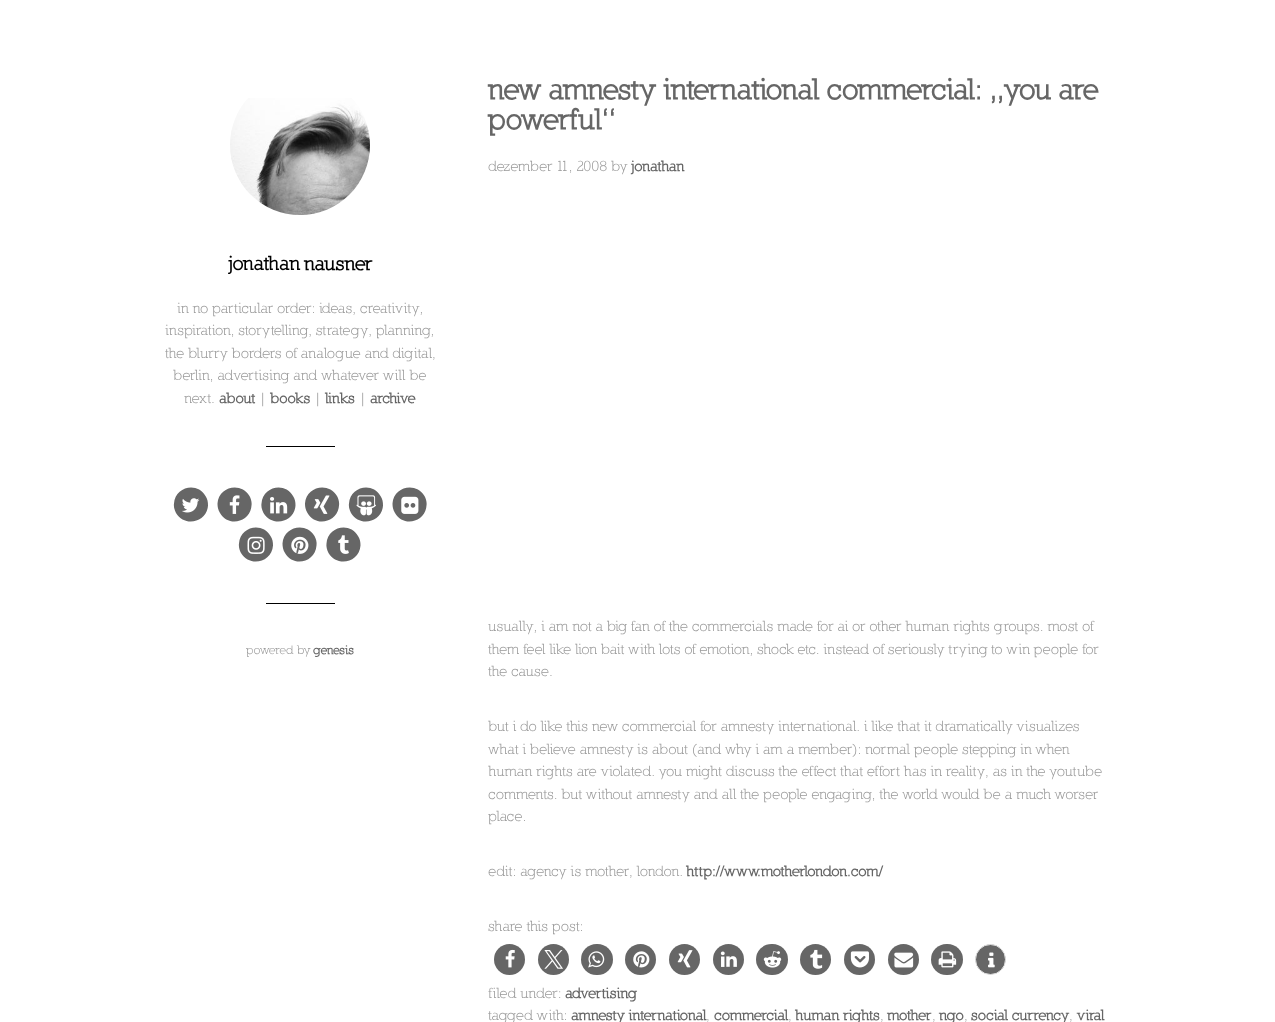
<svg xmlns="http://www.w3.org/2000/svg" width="1275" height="1022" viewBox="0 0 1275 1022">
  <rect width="100%" height="100%" fill="#ffffff"/>
  <image x="230" y="98" width="140" height="117" href="img1.png"/>
  <text x="228" y="270" font-family="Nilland" font-size="20" font-weight="bold" fill="#000000">jonathan</text>
  <text x="304" y="270" font-family="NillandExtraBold" font-size="20" font-weight="800" fill="#000000">nausner</text>
  <text x="177" y="313" font-family="Nilland" font-size="15" fill="#999999">in no particular order: ideas, creativity,</text>
  <text x="165" y="335" font-family="Nilland" font-size="15" fill="#999999">inspiration, storytelling, strategy, planning,</text>
  <text x="165" y="358" font-family="Nilland" font-size="15" fill="#999999">the blurry borders of analogue and digital,</text>
  <text x="173" y="380" font-family="Nilland" font-size="15" fill="#999999">berlin, advertising and whatever will be</text>
  <text x="184" y="403" font-family="Nilland" font-size="15" fill="#999999">next.</text>
  <text x="219" y="403" font-family="NillandExtraBold" font-size="15" font-weight="800" fill="#666666">about</text>
  <text x="259" y="403" font-family="Nilland" font-size="15" fill="#999999">|</text>
  <text x="270" y="403" font-family="NillandExtraBold" font-size="15" font-weight="800" fill="#666666">books</text>
  <text x="314" y="403" font-family="Nilland" font-size="15" fill="#999999">|</text>
  <text x="325" y="403" font-family="NillandExtraBold" font-size="15" font-weight="800" fill="#666666">links</text>
  <text x="359" y="403" font-family="Nilland" font-size="15" fill="#999999">|</text>
  <text x="370" y="403" font-family="NillandExtraBold" font-size="15" font-weight="800" fill="#666666">archive</text>
  <rect x="266" y="446" width="69" height="1" fill="#000000"/>
  <path d="M205.5 496C207.5 499 208 502 208 505.5C207 522.5 184.5 527.5 176 513C174.5 510 173.5 506.5 174 503.5C175 486.5 197.5 481.5 205.5 496Z" fill="#666666"/>
  <image x="182" y="498" width="18" height="15" href="img2.png"/>
  <path d="M249.5 496C251 499 252 502 251.5 505.5C250.5 522.5 228 527.5 220 513C218 510 217.5 506.5 217.5 503.5C218.5 486.5 241 481.5 249.5 496Z" fill="#666666"/>
  <image x="229" y="495" width="11" height="19" href="img3.png"/>
  <path d="M293 496C295 499 295.5 502 295.5 505.5C294.5 522.5 272 527.5 263.5 513C262 510 261 506.5 261.5 503.5C262.5 486.5 285 481.5 293 496Z" fill="#666666"/>
  <image x="270" y="497" width="18" height="17" href="img4.png"/>
  <path d="M337 496C338.5 499 339.5 502 339 505.5C338 522.5 315.5 527.5 307.5 513C305.5 510 305 506.5 305 503.5C306 486.5 328.5 481.5 337 496Z" fill="#666666"/>
  <image x="313" y="495" width="17" height="19" href="img5.png"/>
  <path d="M380.5 496C382.5 499 383 502 383 505.5C382 522.5 359.5 527.5 351 513C349.5 510 348.5 506.5 349 503.5C350 486.5 372.5 481.5 380.5 496Z" fill="#666666"/>
  <image x="356" y="495" width="20" height="21" href="img6.png"/>
  <path d="M424.5 496C426 499 427 502 426.5 505.5C425.5 522.5 403 527.5 395 513C393 510 392.5 506.5 392.5 503.5C393.5 486.5 416 481.5 424.5 496Z" fill="#666666"/>
  <image x="401" y="496" width="18" height="18" href="img7.png"/>
  <path d="M270.5 536C272.5 539 273 542 273 545.5C272 562.5 249.5 567.5 241 553C239.5 550 238.5 546.5 239 543.5C240 526.5 262.5 521.5 270.5 536Z" fill="#666666"/>
  <image x="247" y="536" width="18" height="18" href="img8.png"/>
  <path d="M314.5 536C316 539 317 542 316.5 545.5C315.5 562.5 293 567.5 285 553C283 550 282.5 546.5 282.5 543.5C283.5 526.5 306 521.5 314.5 536Z" fill="#666666"/>
  <image x="291" y="536" width="18" height="18" href="img9.png"/>
  <path d="M358 536C360 539 360.5 542 360.5 545.5C359.5 562.5 337 567.5 328.5 553C327 550 326 546.5 326.5 543.5C327.5 526.5 350 521.5 358 536Z" fill="#666666"/>
  <image x="338" y="535" width="11" height="19" href="img10.png"/>
  <rect x="266" y="603" width="69" height="1" fill="#000000"/>
  <text x="246" y="654" font-family="Nilland" font-size="12.5" fill="#999999">powered by</text>
  <text x="313" y="654" font-family="NillandExtraBold" font-size="12.5" font-weight="800" fill="#666666">genesis</text>
  <text x="488" y="99" font-family="NillandExtraBold" font-size="30" font-weight="800" fill="#666666">new amnesty international commercial: „you are</text>
  <text x="488" y="129" font-family="NillandExtraBold" font-size="30" font-weight="800" fill="#666666">powerful“</text>
  <text x="488" y="171" font-family="Nilland" font-size="15" fill="#999999">dezember 11, 2008 by</text>
  <text x="631" y="171" font-family="NillandExtraBold" font-size="15" font-weight="800" fill="#666666">jonathan</text>
  <text x="488" y="631" font-family="Nilland" font-size="15" fill="#999999">usually, i am not a big fan of the commercials made for ai or other human rights groups. most of</text>
  <text x="488" y="654" font-family="Nilland" font-size="15" fill="#999999">them feel like lion bait with lots of emotion, shock etc. instead of seriously trying to win people for</text>
  <text x="488" y="676" font-family="Nilland" font-size="15" fill="#999999">the cause.</text>
  <text x="488" y="731" font-family="Nilland" font-size="15" fill="#999999">but i do like this new commercial for amnesty international. i like that it dramatically visualizes</text>
  <text x="488" y="754" font-family="Nilland" font-size="15" fill="#999999">what i believe amnesty is about (and why i am a member): normal people stepping in when</text>
  <text x="488" y="776" font-family="Nilland" font-size="15" fill="#999999">human rights are violated. you might discuss the effect that effort has in reality, as in the youtube</text>
  <text x="488" y="799" font-family="Nilland" font-size="15" fill="#999999">comments. but without amnesty and all the people engaging, the world would be a much worser</text>
  <text x="488" y="821" font-family="Nilland" font-size="15" fill="#999999">place.</text>
  <text x="488" y="876" font-family="Nilland" font-size="15" fill="#999999">edit: agency is mother, london.</text>
  <text x="686" y="876" font-family="NillandExtraBold" font-size="15" font-weight="800" fill="#666666">http://www.motherlondon.com/</text>
  <text x="488" y="931" font-family="Nilland" font-size="15" fill="#999999">share this post:</text>
  <circle cx="509.5" cy="959.5" r="15.5" fill="#666666"/>
  <image x="505" y="949" width="10" height="19" href="img11.png"/>
  <circle cx="553.5" cy="959.5" r="15.5" fill="#666666"/>
  <image x="544" y="950" width="19" height="19" href="img12.png"/>
  <rect x="581" y="944" width="32" height="31" rx="15.5" fill="#666666"/>
  <image x="588" y="951" width="17" height="17" href="img13.png"/>
  <circle cx="640.5" cy="959.5" r="15.5" fill="#666666"/>
  <image x="633" y="951" width="17" height="17" href="img14.png"/>
  <circle cx="684.5" cy="959.5" r="15.5" fill="#666666"/>
  <image x="677" y="950" width="16" height="18" href="img15.png"/>
  <circle cx="728.5" cy="959.5" r="15.5" fill="#666666"/>
  <image x="720" y="951" width="17" height="16" href="img16.png"/>
  <rect x="756" y="944" width="32" height="31" rx="15.5" fill="#666666"/>
  <image x="763" y="951" width="19" height="17" href="img17.png"/>
  <circle cx="815.5" cy="959.5" r="15.5" fill="#666666"/>
  <image x="810" y="949" width="13" height="20" href="img18.png"/>
  <circle cx="859.5" cy="959.5" r="15.5" fill="#666666"/>
  <image x="850" y="951" width="19" height="17" href="img19.png"/>
  <circle cx="903.5" cy="959.5" r="15.5" fill="#666666"/>
  <image x="894" y="952" width="20" height="16" href="img20.png"/>
  <rect x="931" y="944" width="32" height="31" rx="15.5" fill="#666666"/>
  <image x="938" y="951" width="19" height="17" href="img21.png"/>
  <circle cx="990.5" cy="959.5" r="15" fill="#666666" stroke="#dddddd"/>
  <image x="988" y="952" width="7" height="16" href="img22.png"/>
  <text x="488" y="998" font-family="Nilland" font-size="15" fill="#999999">filed under:</text>
  <text x="565" y="998" font-family="NillandExtraBold" font-size="15" font-weight="800" fill="#666666">advertising</text>
  <text x="488" y="1020" font-family="Nilland" font-size="15" fill="#999999">tagged with:</text>
  <text x="571" y="1020" font-family="NillandExtraBold" font-size="15" font-weight="800" fill="#666666">amnesty international</text>
  <text x="706" y="1020" font-family="Nilland" font-size="15" fill="#999999">,</text>
  <text x="714" y="1020" font-family="NillandExtraBold" font-size="15" font-weight="800" fill="#666666">commercial</text>
  <text x="788" y="1020" font-family="Nilland" font-size="15" fill="#999999">,</text>
  <text x="795" y="1020" font-family="NillandExtraBold" font-size="15" font-weight="800" fill="#666666">human rights</text>
  <text x="880" y="1020" font-family="Nilland" font-size="15" fill="#999999">,</text>
  <text x="887" y="1020" font-family="NillandExtraBold" font-size="15" font-weight="800" fill="#666666">mother</text>
  <text x="932" y="1020" font-family="Nilland" font-size="15" fill="#999999">,</text>
  <text x="939" y="1020" font-family="NillandExtraBold" font-size="15" font-weight="800" fill="#666666">ngo</text>
  <text x="964" y="1020" font-family="Nilland" font-size="15" fill="#999999">,</text>
  <text x="971" y="1020" font-family="NillandExtraBold" font-size="15" font-weight="800" fill="#666666">social currency</text>
  <text x="1069" y="1020" font-family="Nilland" font-size="15" fill="#999999">,</text>
  <text x="1077" y="1020" font-family="NillandExtraBold" font-size="15" font-weight="800" fill="#666666">viral</text>
</svg>
